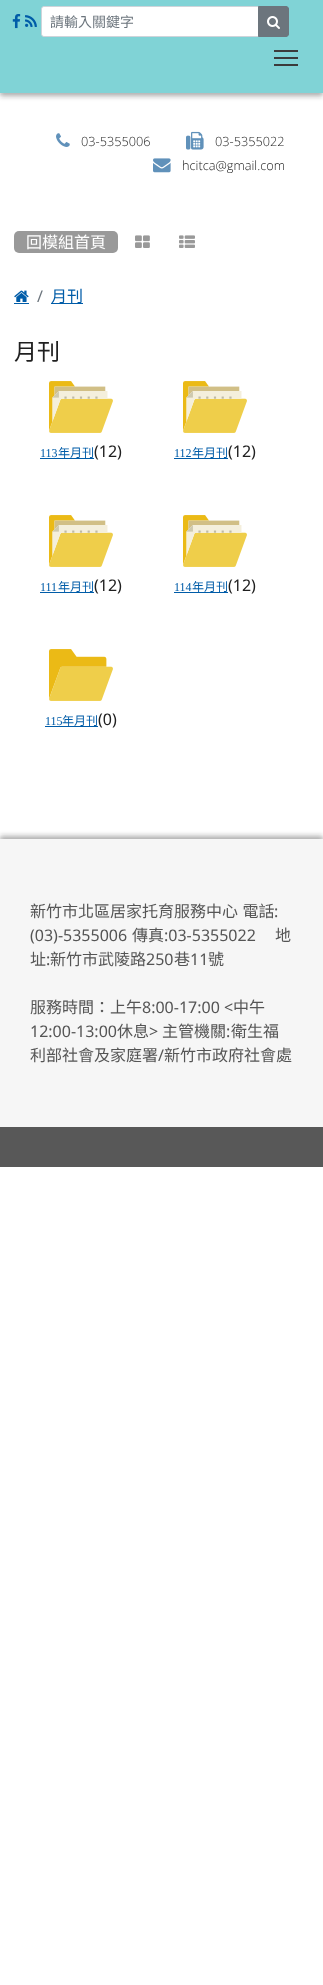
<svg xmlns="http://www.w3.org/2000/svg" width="323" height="1985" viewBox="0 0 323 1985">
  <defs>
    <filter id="blur1" x="-50%" y="-200%" width="200%" height="500%"><feGaussianBlur stdDeviation="2.5"/></filter>
  </defs>
  <rect width="100%" height="100%" fill="#ffffff"/>
  <rect x="0" y="3" width="323" height="93" fill="#323232" fill-opacity="0.4" filter="url(#blur1)"/>
  <rect x="0" y="0" width="323" height="93" fill="#80d3d6"/>
  <image x="12" y="14" width="9" height="15" href="img1.png"/>
  <image x="25" y="15" width="12" height="12" href="img2.png"/>
  <path d="M44 6.5H258.5V36.5H44C42.5 36.5 41.5 35.5 41.5 34V9C41.5 7.5 42.5 6.5 44 6.5Z" fill="#ffffff" stroke="#ced4da"/>
  <text x="50" y="27" font-family="Noto Sans CJK TC" font-size="14" fill="#6c757d">請輸入關鍵字</text>
  <path d="M258.5 6.5H286C287.5 6.5 288.5 7.5 288.5 9V34C288.5 35.5 287.5 36.5 286 36.5H258.5Z" fill="#6c757d" stroke="#6c757d"/>
  <image x="267" y="16" width="13" height="13" href="img3.png"/>
  <rect x="274" y="57" width="24" height="2" fill="#3b3b3b"/>
  <rect x="274" y="50" width="24" height="2" fill="#3b3b3b"/>
  <rect x="274" y="64" width="24" height="2" fill="#3b3b3b"/>
  <image x="56" y="133" width="14" height="14" href="img4.png"/>
  <text x="81" y="146" font-family="Open Sans" font-size="12.75" font-weight="300" fill="#202020">03-5355006</text>
  <image x="186" y="131" width="18" height="19" href="img5.png"/>
  <text x="215" y="146" font-family="Open Sans" font-size="12.75" font-weight="300" fill="#202020">03-5355022</text>
  <image x="153" y="158" width="18" height="15" href="img6.png"/>
  <text x="182" y="170" font-family="Open Sans" font-size="12.75" font-weight="300" fill="#202020">hcitca@gmail.com</text>
  <rect x="14" y="231" width="104" height="22" rx="5" fill="#999999"/>
  <text x="26" y="248" font-family="Noto Sans CJK TC" font-size="16" fill="#ffffff">回模組首頁</text>
  <image x="135" y="235" width="15" height="13" href="img7.png"/>
  <image x="179" y="235" width="16" height="13" href="img8.png"/>
  <image x="14" y="290" width="15" height="12" href="img9.png"/>
  <rect x="14" y="303" width="15" height="1" fill="#005ca8"/>
  <text x="37" y="302" font-family="Noto Sans" font-size="16" fill="#6c757d">/</text>
  <rect x="51" y="303" width="32" height="1" fill="#005ca8"/>
  <text x="51" y="302" font-family="Noto Sans CJK TC" font-size="16" fill="#005ca8">月刊</text>
  <text x="14" y="360" font-family="Noto Sans CJK TC" font-size="23" fill="#202020">月刊</text>
  <image x="49" y="381" width="64" height="52" href="img10.png"/>
  <text x="40" y="457" font-family="Liberation Serif" font-size="12" fill="#005ca8">113</text>
  <rect x="40" y="458" width="54" height="1" fill="#005ca8"/>
  <text x="58" y="457" font-family="Noto Sans CJK TC" font-size="12" fill="#005ca8">年月刊</text>
  <text x="94" y="457" font-family="Noto Sans" font-size="16" fill="#202020">(12)</text>
  <image x="183" y="381" width="64" height="52" href="img10.png"/>
  <text x="174" y="457" font-family="Liberation Serif" font-size="12" fill="#005ca8">112</text>
  <rect x="174" y="458" width="54" height="1" fill="#005ca8"/>
  <text x="192" y="457" font-family="Noto Sans CJK TC" font-size="12" fill="#005ca8">年月刊</text>
  <text x="228" y="457" font-family="Noto Sans" font-size="16" fill="#202020">(12)</text>
  <image x="49" y="515" width="64" height="52" href="img10.png"/>
  <text x="40" y="591" font-family="Liberation Serif" font-size="12" fill="#005ca8">111</text>
  <rect x="40" y="592" width="54" height="1" fill="#005ca8"/>
  <text x="58" y="591" font-family="Noto Sans CJK TC" font-size="12" fill="#005ca8">年月刊</text>
  <text x="94" y="591" font-family="Noto Sans" font-size="16" fill="#202020">(12)</text>
  <image x="183" y="515" width="64" height="52" href="img10.png"/>
  <text x="174" y="591" font-family="Liberation Serif" font-size="12" fill="#005ca8">114</text>
  <rect x="174" y="592" width="54" height="1" fill="#005ca8"/>
  <text x="192" y="591" font-family="Noto Sans CJK TC" font-size="12" fill="#005ca8">年月刊</text>
  <text x="228" y="591" font-family="Noto Sans" font-size="16" fill="#202020">(12)</text>
  <image x="49" y="649" width="64" height="52" href="img11.png"/>
  <text x="45" y="725" font-family="Liberation Serif" font-size="12" fill="#005ca8">115</text>
  <rect x="45" y="726" width="53" height="1" fill="#005ca8"/>
  <text x="62" y="725" font-family="Noto Sans CJK TC" font-size="12" fill="#005ca8">年月刊</text>
  <text x="98" y="725" font-family="Noto Sans" font-size="16" fill="#202020">(0)</text>
  <rect x="0" y="836" width="323" height="288" fill="#323232" fill-opacity="0.4" filter="url(#blur1)"/>
  <rect x="0" y="839" width="323" height="288" fill="#f6f6f6"/>
  <text x="30" y="917" word-spacing="1" font-family="Noto Sans CJK TC" font-size="16" fill="#555555">新竹市北區居家托育服務中心 電話</text>
  <text x="274" y="917" font-family="Noto Sans" font-size="16" fill="#555555">:</text>
  <text x="30" y="941" font-family="Noto Sans" font-size="16" fill="#555555">(03)-5355006</text>
  <text x="132" y="941" font-family="Noto Sans CJK TC" font-size="16" fill="#555555">傳真</text>
  <text x="164" y="941" font-family="Noto Sans" font-size="16" fill="#555555">:03-5355022</text>
  <text x="275" y="941" font-family="Noto Sans CJK TC" font-size="16" fill="#555555">地</text>
  <text x="30" y="965" font-family="Noto Sans CJK TC" font-size="16" fill="#555555">址</text>
  <text x="46" y="965" font-family="Noto Sans" font-size="16" fill="#555555">:</text>
  <text x="50" y="965" font-family="Noto Sans CJK TC" font-size="16" fill="#555555">新竹市武陵路</text>
  <text x="146" y="965" font-family="Noto Sans" font-size="16" fill="#555555">250</text>
  <text x="174" y="965" font-family="Noto Sans CJK TC" font-size="16" fill="#555555">巷</text>
  <text x="190" y="965" font-family="Noto Sans" font-size="16" fill="#555555">11</text>
  <text x="208" y="965" font-family="Noto Sans CJK TC" font-size="16" fill="#555555">號</text>
  <text x="30" y="1013" font-family="Noto Sans CJK TC" font-size="16" fill="#555555">服務時間：上午</text>
  <text x="142" y="1013" font-family="Noto Sans" font-size="16" fill="#555555">8:00-17:00 &lt;</text>
  <text x="233" y="1013" font-family="Noto Sans CJK TC" font-size="16" fill="#555555">中午</text>
  <text x="30" y="1037" font-family="Noto Sans" font-size="16" fill="#555555">12:00-13:00</text>
  <text x="117" y="1037" font-family="Noto Sans CJK TC" font-size="16" fill="#555555">休息</text>
  <text x="149" y="1037" font-family="Noto Sans" font-size="16" fill="#555555">&gt;</text>
  <text x="162" y="1037" font-family="Noto Sans CJK TC" font-size="16" fill="#555555">主管機關</text>
  <text x="226" y="1037" font-family="Noto Sans" font-size="16" fill="#555555">:</text>
  <text x="231" y="1037" font-family="Noto Sans CJK TC" font-size="16" fill="#555555">衛生福</text>
  <text x="30" y="1061" font-family="Noto Sans CJK TC" font-size="16" fill="#555555">利部社會及家庭署</text>
  <text x="158" y="1061" font-family="Noto Sans" font-size="16" fill="#555555">/</text>
  <text x="164" y="1061" font-family="Noto Sans CJK TC" font-size="16" fill="#555555">新竹市政府社會處</text>
  <rect x="0" y="1127" width="323" height="40" fill="#585858"/>
</svg>
